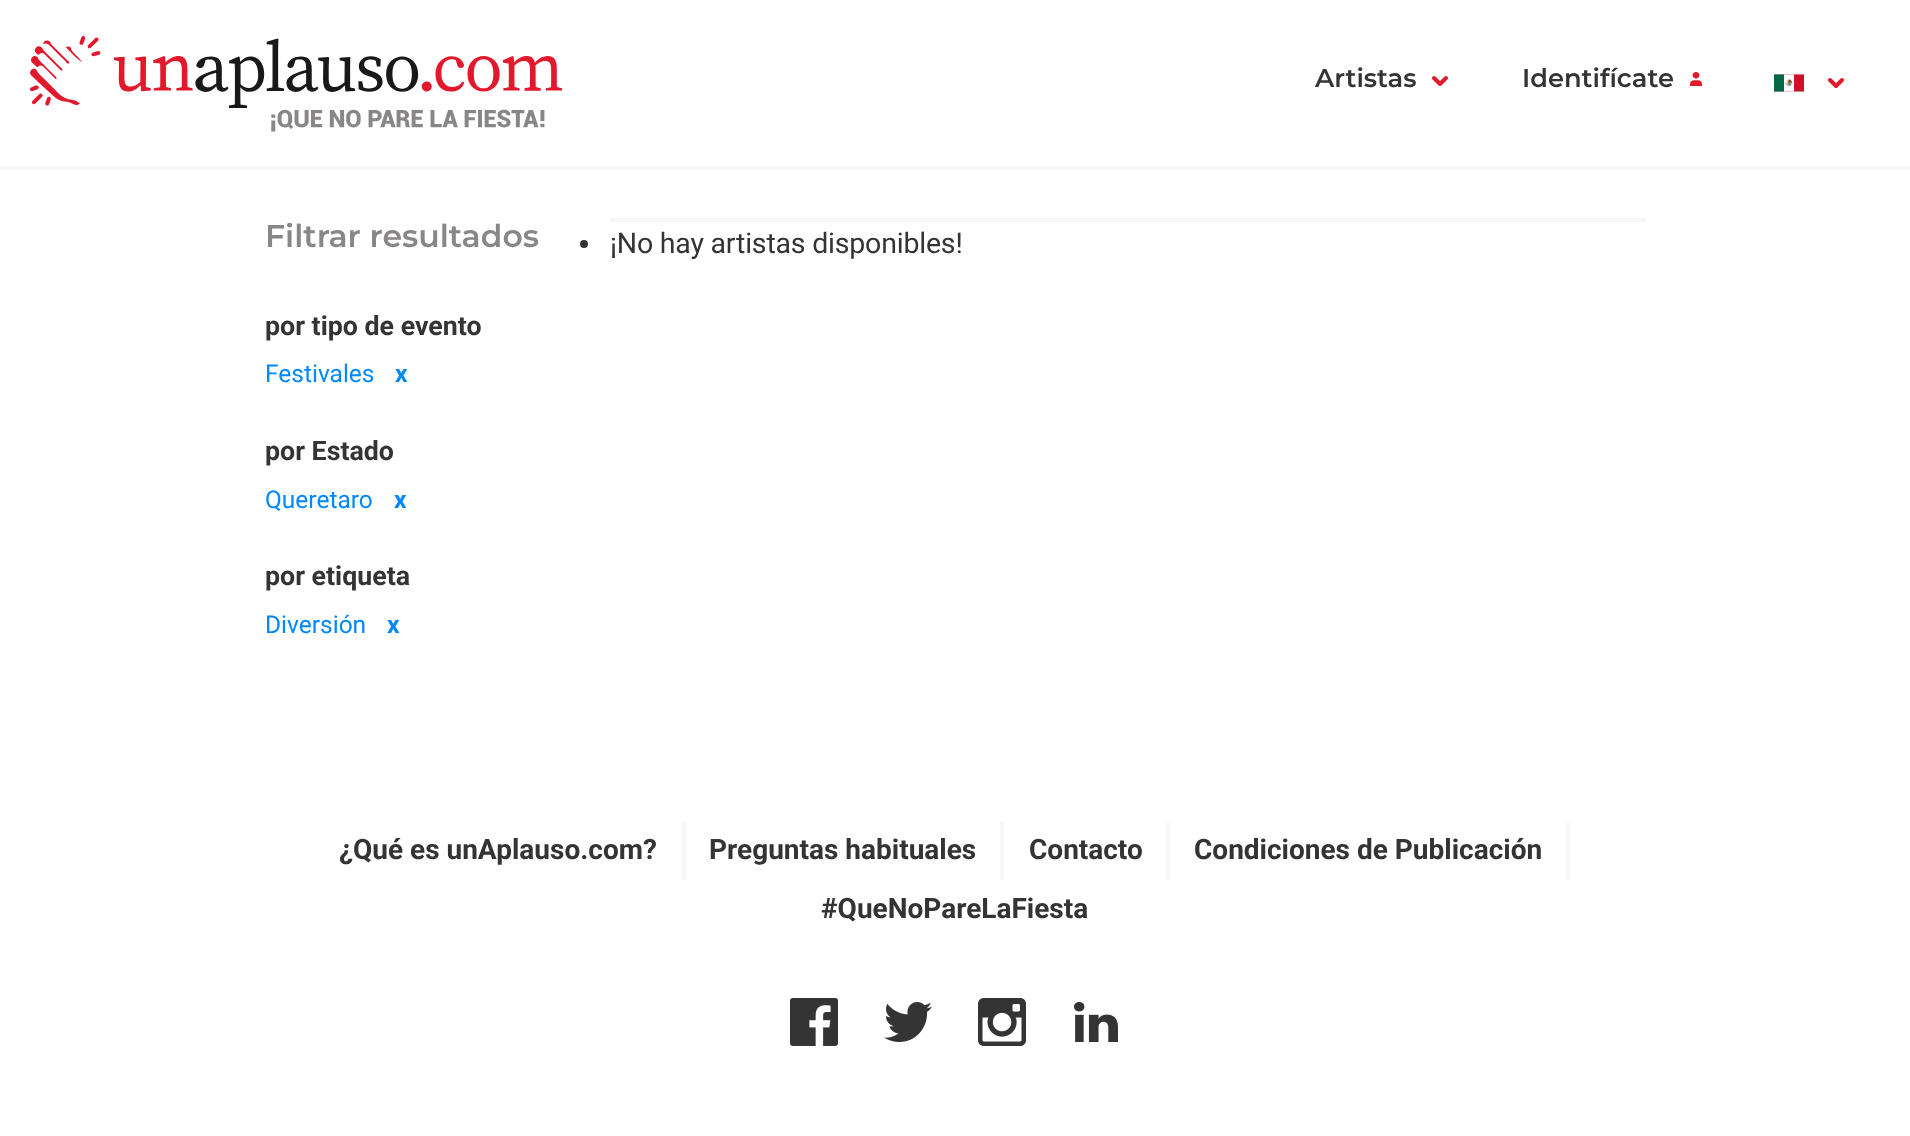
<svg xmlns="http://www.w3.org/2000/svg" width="1910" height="1136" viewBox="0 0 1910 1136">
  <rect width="100%" height="100%" fill="#ffffff"/>
  <rect x="0" y="166" width="1910" height="4" fill="#f7f7f7"/>
  <image x="30" y="36" width="532" height="96" href="img1.png"/>
  <text x="1315" y="87" font-family="Montserrat" font-size="25.75" font-weight="600" fill="#353434">Artistas</text>
  <path d="M1446 78L1440 84L1434 78" fill="none" stroke="#e2192d" stroke-width="4" stroke-linecap="round" stroke-linejoin="round"/>
  <text x="1522" y="87" font-family="Montserrat" font-size="25.75" font-weight="600" fill="#353434">Identifícate</text>
  <image x="1690" y="72" width="12" height="14" href="img2.png"/>
  <image x="1774" y="74" width="30" height="18" href="img3.png"/>
  <path d="M1842 80L1836 86L1830 80" fill="none" stroke="#e2192d" stroke-width="4" stroke-linecap="round" stroke-linejoin="round"/>
  <text x="265" y="247" font-family="Montserrat" font-size="31.5" font-weight="600" fill="#888687">Filtrar resultados</text>
  <text x="265" y="335" font-family="Roboto" font-size="26.75" font-weight="bold" fill="#353434">por tipo de evento</text>
  <text x="265" y="382" font-family="Roboto" font-size="24.5" fill="#0088ff">Festivales</text>
  <text x="395" y="382" font-family="Roboto" font-size="24.5" font-weight="bold" fill="#0088ff">x</text>
  <text x="265" y="460" font-family="Roboto" font-size="26.75" font-weight="bold" fill="#353434">por Estado</text>
  <text x="265" y="508" font-family="Roboto" font-size="24.5" fill="#0088ff">Queretaro</text>
  <text x="394" y="508" font-family="Roboto" font-size="24.5" font-weight="bold" fill="#0088ff">x</text>
  <text x="265" y="585" font-family="Roboto" font-size="26.75" font-weight="bold" fill="#353434">por etiqueta</text>
  <text x="265" y="633" font-family="Roboto" font-size="24.5" fill="#0088ff">Diversión</text>
  <text x="387" y="633" font-family="Roboto" font-size="24.5" font-weight="bold" fill="#0088ff">x</text>
  <rect x="610" y="218" width="1036" height="4" fill="#f7f7f7"/>
  <circle cx="584" cy="244" r="4" fill="#353434"/>
  <text x="610" y="253" font-family="Roboto" font-size="28.5" letter-spacing="-0.2" fill="#353434">¡No hay artistas disponibles!</text>
  <rect x="682" y="822" width="4" height="58" fill="#f7f7f7"/>
  <text x="339" y="859" font-family="Roboto" font-size="28" font-weight="bold" fill="#353434">¿Qué es unAplauso.com?</text>
  <rect x="1000" y="822" width="4" height="58" fill="#f7f7f7"/>
  <text x="709" y="859" font-family="Roboto" font-size="28" font-weight="bold" fill="#353434">Preguntas habituales</text>
  <rect x="1166" y="822" width="4" height="58" fill="#f7f7f7"/>
  <text x="1029" y="859" font-family="Roboto" font-size="28" font-weight="bold" fill="#353434">Contacto</text>
  <rect x="1566" y="822" width="4" height="58" fill="#f7f7f7"/>
  <text x="1194" y="859" font-family="Roboto" font-size="28" font-weight="bold" fill="#353434">Condiciones de Publicación</text>
  <text x="821" y="918" font-family="Roboto" font-size="28" font-weight="bold" fill="#353434">#QueNoPareLaFiesta</text>
  <image x="790" y="998" width="48" height="48" href="img4.png"/>
  <image x="884" y="1002" width="48" height="40" href="img5.png"/>
  <image x="978" y="998" width="48" height="48" href="img6.png"/>
  <image x="1074" y="1002" width="44" height="40" href="img7.png"/>
</svg>
